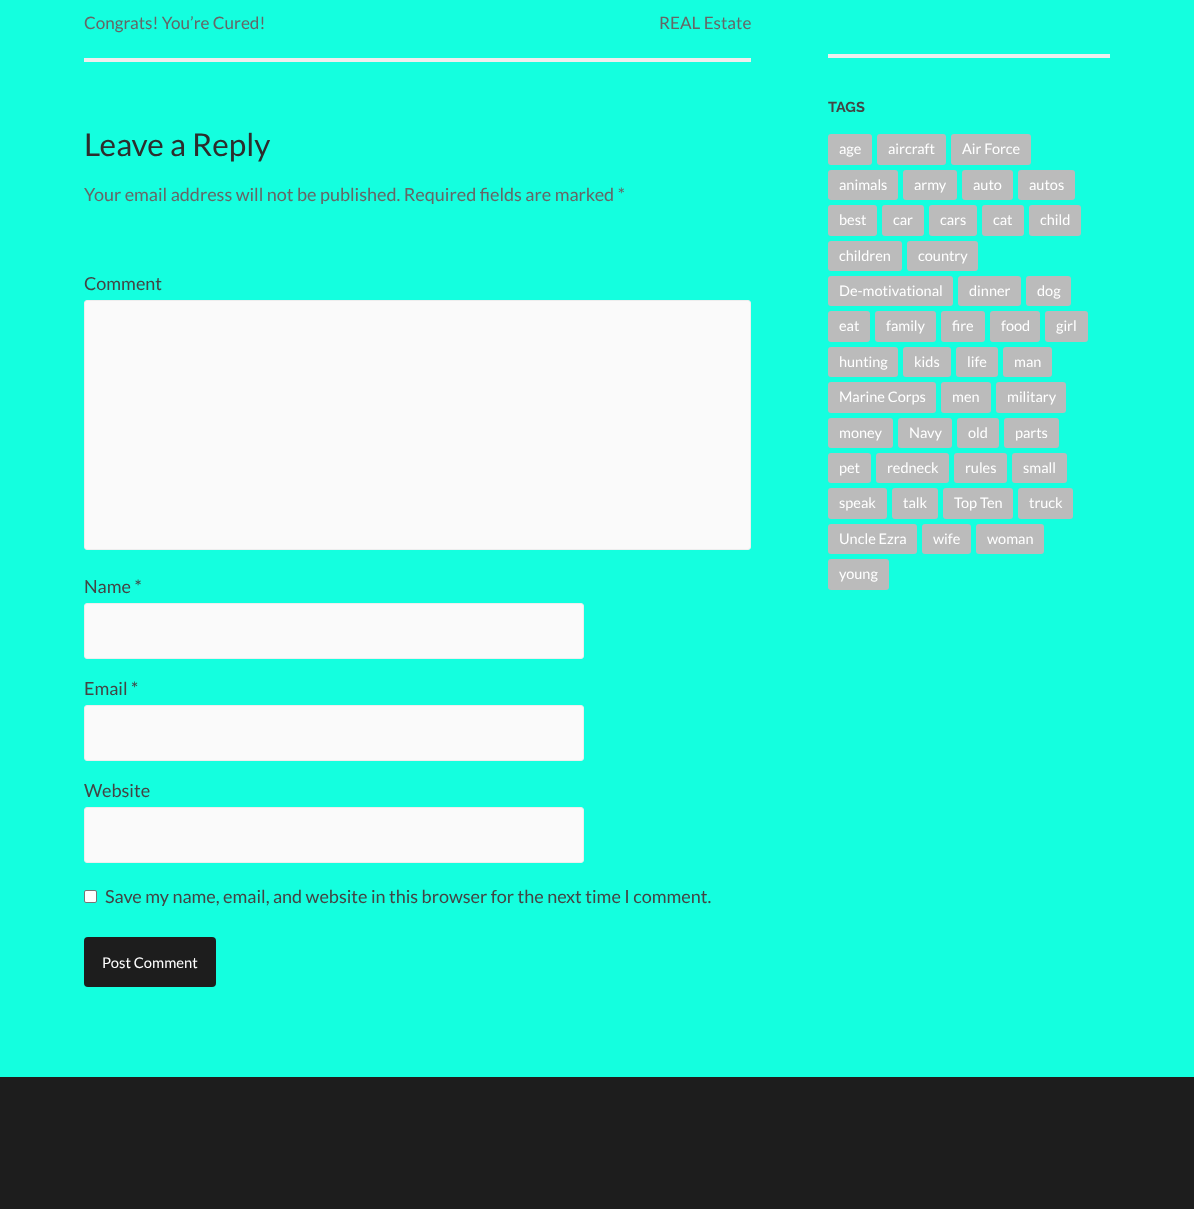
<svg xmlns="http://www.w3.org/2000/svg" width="1194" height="1209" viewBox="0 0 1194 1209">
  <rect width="100%" height="100%" fill="#14ffdf"/>
  <rect x="84" y="58" width="667" height="4" fill="#eeeeee"/>
  <text x="84" y="29" font-family="Lato" font-size="17.1" fill="#666666">Congrats! You’re Cured!</text>
  <text x="659" y="29" font-family="Lato" font-size="17.1" fill="#666666">REAL Estate</text>
  <text x="84" y="156" font-family="Lato" font-size="31.5" fill="#2d2d2d">Leave a Reply</text>
  <text x="84" y="201" font-family="Lato" font-size="18" fill="#666666">Your email address will not be published. Required fields are marked *</text>
  <text x="84" y="290" font-family="Lato" font-size="18" fill="#444444">Comment</text>
  <rect x="84.5" y="300.5" width="666" height="249" rx="2.5" fill="#fafafa" stroke="#eeeeee"/>
  <text x="84" y="593" font-family="Lato" font-size="18" fill="#444444">Name *</text>
  <rect x="84.5" y="603.5" width="499" height="55" rx="2.5" fill="#fafafa" stroke="#eeeeee"/>
  <text x="84" y="695" font-family="Lato" font-size="18" fill="#444444">Email *</text>
  <rect x="84.5" y="705.5" width="499" height="55" rx="2.5" fill="#fafafa" stroke="#eeeeee"/>
  <text x="84" y="797" font-family="Lato" font-size="18" fill="#444444">Website</text>
  <rect x="84.5" y="807.5" width="499" height="55" rx="2.5" fill="#fafafa" stroke="#eeeeee"/>
  <rect x="84.5" y="890.5" width="12" height="12" rx="1.5" fill="#ffffff" stroke="#767676"/>
  <text x="105" y="903" font-family="Lato" font-size="18" fill="#444444">Save my name, email, and website in this browser for the next time I comment.</text>
  <rect x="84" y="937" width="132" height="50" rx="4" fill="#1d1d1d"/>
  <text x="102" y="968" font-family="Lato" font-size="14.75" fill="#ffffff">Post Comment</text>
  <rect x="828" y="54" width="282" height="4" fill="#eeeeee"/>
  <text x="828" y="112" font-family="Raleway" font-size="14.5" font-weight="bold" fill="#444444">TAGS</text>
  <rect x="828" y="134" width="44" height="31" rx="3" fill="#bbbbbb"/>
  <text x="839" y="154" font-family="Lato" font-size="14.5" fill="#ffffff">age</text>
  <rect x="877" y="134" width="69" height="31" rx="3" fill="#bbbbbb"/>
  <text x="888" y="154" font-family="Lato" font-size="14.5" fill="#ffffff">aircraft</text>
  <rect x="951" y="134" width="80" height="31" rx="3" fill="#bbbbbb"/>
  <text x="962" y="154" font-family="Lato" font-size="14.5" fill="#ffffff">Air Force</text>
  <rect x="828" y="170" width="70" height="30" rx="3" fill="#bbbbbb"/>
  <text x="839" y="190" font-family="Lato" font-size="14.5" fill="#ffffff">animals</text>
  <rect x="903" y="170" width="54" height="30" rx="3" fill="#bbbbbb"/>
  <text x="914" y="190" font-family="Lato" font-size="14.5" fill="#ffffff">army</text>
  <rect x="962" y="170" width="51" height="30" rx="3" fill="#bbbbbb"/>
  <text x="973" y="190" font-family="Lato" font-size="14.5" fill="#ffffff">auto</text>
  <rect x="1018" y="170" width="57" height="30" rx="3" fill="#bbbbbb"/>
  <text x="1029" y="190" font-family="Lato" font-size="14.5" fill="#ffffff">autos</text>
  <rect x="828" y="205" width="49" height="31" rx="3" fill="#bbbbbb"/>
  <text x="839" y="225" font-family="Lato" font-size="14.5" fill="#ffffff">best</text>
  <rect x="882" y="205" width="42" height="31" rx="3" fill="#bbbbbb"/>
  <text x="893" y="225" font-family="Lato" font-size="14.5" fill="#ffffff">car</text>
  <rect x="929" y="205" width="48" height="31" rx="3" fill="#bbbbbb"/>
  <text x="940" y="225" font-family="Lato" font-size="14.5" fill="#ffffff">cars</text>
  <rect x="982" y="205" width="42" height="31" rx="3" fill="#bbbbbb"/>
  <text x="993" y="225" font-family="Lato" font-size="14.5" fill="#ffffff">cat</text>
  <rect x="1029" y="205" width="52" height="31" rx="3" fill="#bbbbbb"/>
  <text x="1040" y="225" font-family="Lato" font-size="14.5" fill="#ffffff">child</text>
  <rect x="828" y="241" width="74" height="30" rx="3" fill="#bbbbbb"/>
  <text x="839" y="261" font-family="Lato" font-size="14.5" fill="#ffffff">children</text>
  <rect x="907" y="241" width="71" height="30" rx="3" fill="#bbbbbb"/>
  <text x="918" y="261" font-family="Lato" font-size="14.5" fill="#ffffff">country</text>
  <rect x="828" y="276" width="125" height="30" rx="3" fill="#bbbbbb"/>
  <text x="839" y="296" font-family="Lato" font-size="14.5" fill="#ffffff">De-motivational</text>
  <rect x="958" y="276" width="63" height="30" rx="3" fill="#bbbbbb"/>
  <text x="969" y="296" font-family="Lato" font-size="14.5" fill="#ffffff">dinner</text>
  <rect x="1026" y="276" width="45" height="30" rx="3" fill="#bbbbbb"/>
  <text x="1037" y="296" font-family="Lato" font-size="14.5" fill="#ffffff">dog</text>
  <rect x="828" y="311" width="42" height="31" rx="3" fill="#bbbbbb"/>
  <text x="839" y="331" font-family="Lato" font-size="14.5" fill="#ffffff">eat</text>
  <rect x="875" y="311" width="61" height="31" rx="3" fill="#bbbbbb"/>
  <text x="886" y="331" font-family="Lato" font-size="14.5" fill="#ffffff">family</text>
  <rect x="941" y="311" width="44" height="31" rx="3" fill="#bbbbbb"/>
  <text x="952" y="331" font-family="Lato" font-size="14.5" fill="#ffffff">fire</text>
  <rect x="990" y="311" width="50" height="31" rx="3" fill="#bbbbbb"/>
  <text x="1001" y="331" font-family="Lato" font-size="14.5" fill="#ffffff">food</text>
  <rect x="1045" y="311" width="43" height="31" rx="3" fill="#bbbbbb"/>
  <text x="1056" y="331" font-family="Lato" font-size="14.5" fill="#ffffff">girl</text>
  <rect x="828" y="347" width="70" height="30" rx="3" fill="#bbbbbb"/>
  <text x="839" y="367" font-family="Lato" font-size="14.5" fill="#ffffff">hunting</text>
  <rect x="903" y="347" width="48" height="30" rx="3" fill="#bbbbbb"/>
  <text x="914" y="367" font-family="Lato" font-size="14.5" fill="#ffffff">kids</text>
  <rect x="956" y="347" width="42" height="30" rx="3" fill="#bbbbbb"/>
  <text x="967" y="367" font-family="Lato" font-size="14.5" fill="#ffffff">life</text>
  <rect x="1003" y="347" width="49" height="30" rx="3" fill="#bbbbbb"/>
  <text x="1014" y="367" font-family="Lato" font-size="14.5" fill="#ffffff">man</text>
  <rect x="828" y="382" width="108" height="31" rx="3" fill="#bbbbbb"/>
  <text x="839" y="402" font-family="Lato" font-size="14.5" fill="#ffffff">Marine Corps</text>
  <rect x="941" y="382" width="50" height="31" rx="3" fill="#bbbbbb"/>
  <text x="952" y="402" font-family="Lato" font-size="14.5" fill="#ffffff">men</text>
  <rect x="996" y="382" width="70" height="31" rx="3" fill="#bbbbbb"/>
  <text x="1007" y="402" font-family="Lato" font-size="14.5" fill="#ffffff">military</text>
  <rect x="828" y="418" width="65" height="30" rx="3" fill="#bbbbbb"/>
  <text x="839" y="438" font-family="Lato" font-size="14.5" fill="#ffffff">money</text>
  <rect x="898" y="418" width="54" height="30" rx="3" fill="#bbbbbb"/>
  <text x="909" y="438" font-family="Lato" font-size="14.5" fill="#ffffff">Navy</text>
  <rect x="957" y="418" width="42" height="30" rx="3" fill="#bbbbbb"/>
  <text x="968" y="438" font-family="Lato" font-size="14.5" fill="#ffffff">old</text>
  <rect x="1004" y="418" width="55" height="30" rx="3" fill="#bbbbbb"/>
  <text x="1015" y="438" font-family="Lato" font-size="14.5" fill="#ffffff">parts</text>
  <rect x="828" y="453" width="43" height="30" rx="3" fill="#bbbbbb"/>
  <text x="839" y="473" font-family="Lato" font-size="14.5" fill="#ffffff">pet</text>
  <rect x="876" y="453" width="73" height="30" rx="3" fill="#bbbbbb"/>
  <text x="887" y="473" font-family="Lato" font-size="14.5" fill="#ffffff">redneck</text>
  <rect x="954" y="453" width="53" height="30" rx="3" fill="#bbbbbb"/>
  <text x="965" y="473" font-family="Lato" font-size="14.5" fill="#ffffff">rules</text>
  <rect x="1012" y="453" width="55" height="30" rx="3" fill="#bbbbbb"/>
  <text x="1023" y="473" font-family="Lato" font-size="14.5" fill="#ffffff">small</text>
  <rect x="828" y="488" width="59" height="31" rx="3" fill="#bbbbbb"/>
  <text x="839" y="508" font-family="Lato" font-size="14.5" fill="#ffffff">speak</text>
  <rect x="892" y="488" width="46" height="31" rx="3" fill="#bbbbbb"/>
  <text x="903" y="508" font-family="Lato" font-size="14.5" fill="#ffffff">talk</text>
  <rect x="943" y="488" width="70" height="31" rx="3" fill="#bbbbbb"/>
  <text x="954" y="508" font-family="Lato" font-size="14.5" fill="#ffffff">Top Ten</text>
  <rect x="1018" y="488" width="55" height="31" rx="3" fill="#bbbbbb"/>
  <text x="1029" y="508" font-family="Lato" font-size="14.5" fill="#ffffff">truck</text>
  <rect x="828" y="524" width="89" height="30" rx="3" fill="#bbbbbb"/>
  <text x="839" y="544" font-family="Lato" font-size="14.5" fill="#ffffff">Uncle Ezra</text>
  <rect x="922" y="524" width="49" height="30" rx="3" fill="#bbbbbb"/>
  <text x="933" y="544" font-family="Lato" font-size="14.5" fill="#ffffff">wife</text>
  <rect x="976" y="524" width="68" height="30" rx="3" fill="#bbbbbb"/>
  <text x="987" y="544" font-family="Lato" font-size="14.5" fill="#ffffff">woman</text>
  <rect x="828" y="559" width="61" height="31" rx="3" fill="#bbbbbb"/>
  <text x="839" y="579" font-family="Lato" font-size="14.5" fill="#ffffff">young</text>
  <rect x="0" y="1077" width="1194" height="132" fill="#1d1d1d"/>
</svg>
